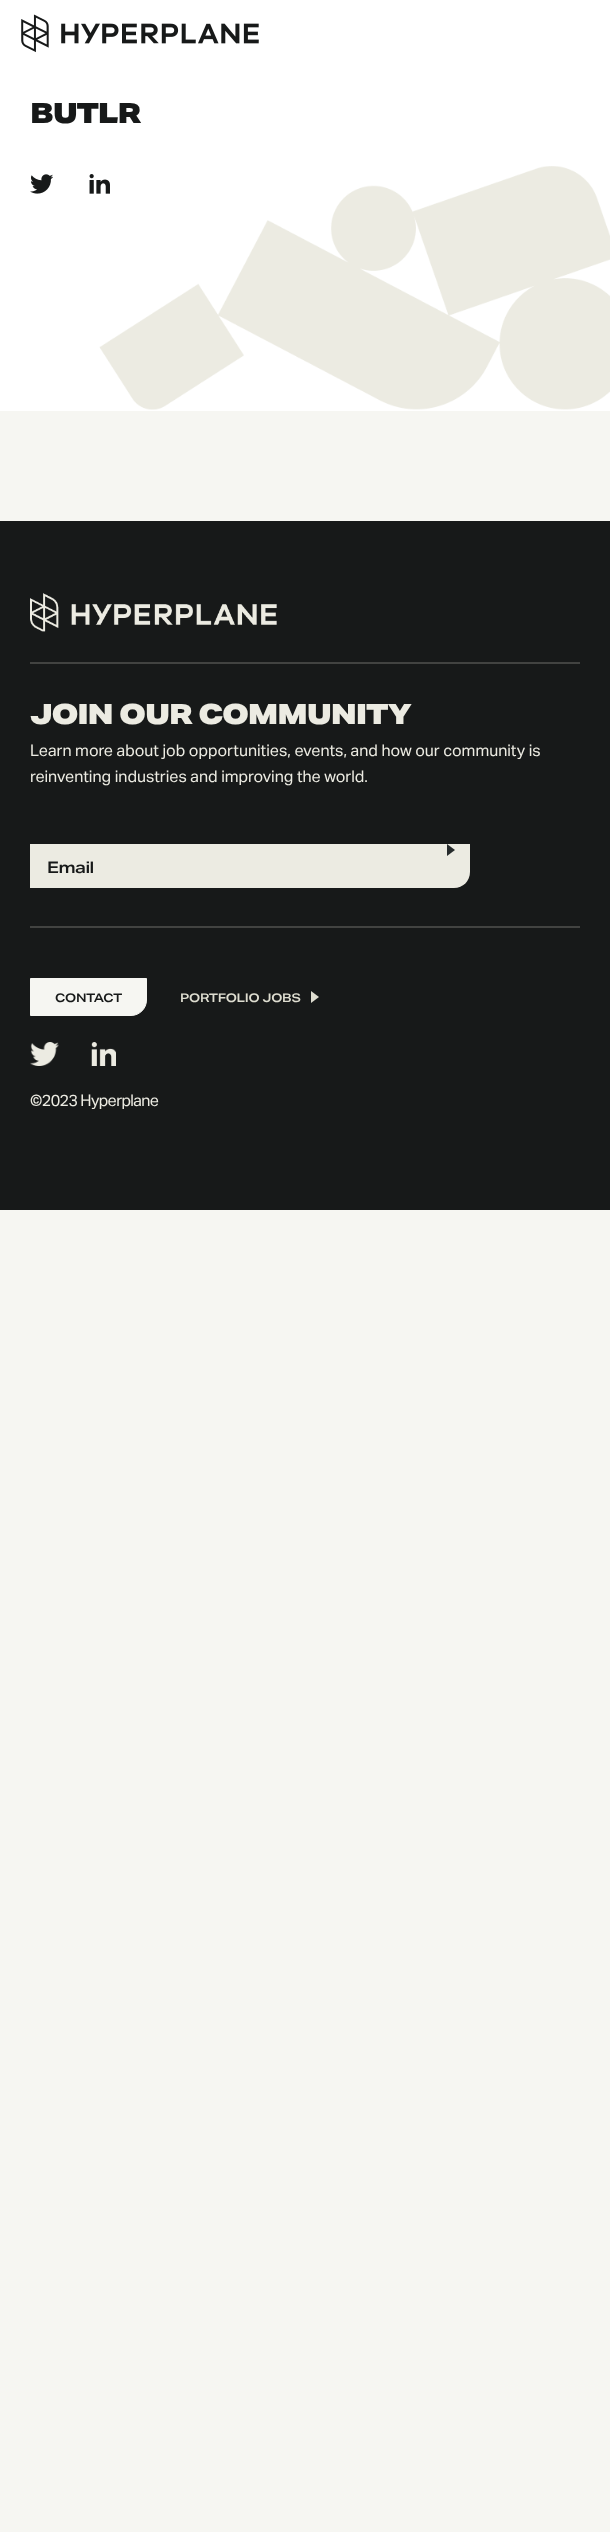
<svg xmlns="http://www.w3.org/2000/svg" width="610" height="2532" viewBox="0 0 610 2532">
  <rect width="100%" height="100%" fill="#f6f6f2"/>
  <rect x="0" y="0" width="610" height="411" fill="#ffffff"/>
  <image x="21" y="14" width="28" height="39" href="img1.png"/>
  <image x="61" y="23" width="198" height="21" href="img2.png"/>
  <text x="30" y="123" font-family="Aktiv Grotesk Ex" font-size="28" font-weight="900" letter-spacing="-1.1" fill="#171919">BUTLR</text>
  <image x="30" y="174" width="23" height="20" href="img3.png"/>
  <image x="99" y="166" width="511" height="244" href="img5.png"/>
  <image x="89" y="174" width="21" height="20" href="img4.png"/>
  <rect x="0" y="521" width="610" height="689" fill="#171919"/>
  <rect x="30" y="662" width="550" height="2" fill="#424341"/>
  <image x="30" y="593" width="247" height="39" href="img6.png"/>
  <rect x="30" y="926" width="550" height="2" fill="#424341"/>
  <text x="30" y="724" font-family="Aktiv Grotesk Ex" font-size="28" font-weight="900" letter-spacing="-1.1" fill="#ecebe2">JOIN OUR COMMUNITY</text>
  <text x="30" y="756" font-family="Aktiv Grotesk" font-size="16" fill="#ecebe2">Learn more about job opportunities, events, and how our community is</text>
  <text x="30" y="782" font-family="Aktiv Grotesk" font-size="16" fill="#ecebe2">reinventing industries and improving the world.</text>
  <path d="M30 844H470V872C470 881 463 888 454 888H30Z" fill="#ecebe2"/>
  <path d="M447 856V844L455 850Z" fill="#262b2c"/>
  <text x="47" y="873" font-family="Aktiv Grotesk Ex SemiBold" font-size="16" font-weight="600" letter-spacing="-0.5" fill="#171919">Email</text>
  <path d="M30.5 978.5H146.5V1000C146.5 1008.5 139.5 1015.5 131 1015.5H30.5Z" fill="#f6f6f2" stroke="#f6f6f2"/>
  <text x="55" y="1002" font-family="Aktiv Grotesk Ex SemiBold" font-size="12" font-weight="600" letter-spacing="-0.25" fill="#171919">CONTACT</text>
  <text x="180" y="1002" font-family="Aktiv Grotesk Ex SemiBold" font-size="12" font-weight="600" letter-spacing="-0.25" fill="#deddd0">PORTFOLIO JOBS</text>
  <path d="M311 1003V991L319 997Z" fill="#deddd0"/>
  <image x="30" y="1042" width="29" height="24" href="img7.png"/>
  <image x="91" y="1042" width="25" height="24" href="img8.png"/>
  <text x="30" y="1106" font-family="Aktiv Grotesk" font-size="16" letter-spacing="-0.6" fill="#ecebe2">©2023 Hyperplane</text>
</svg>
